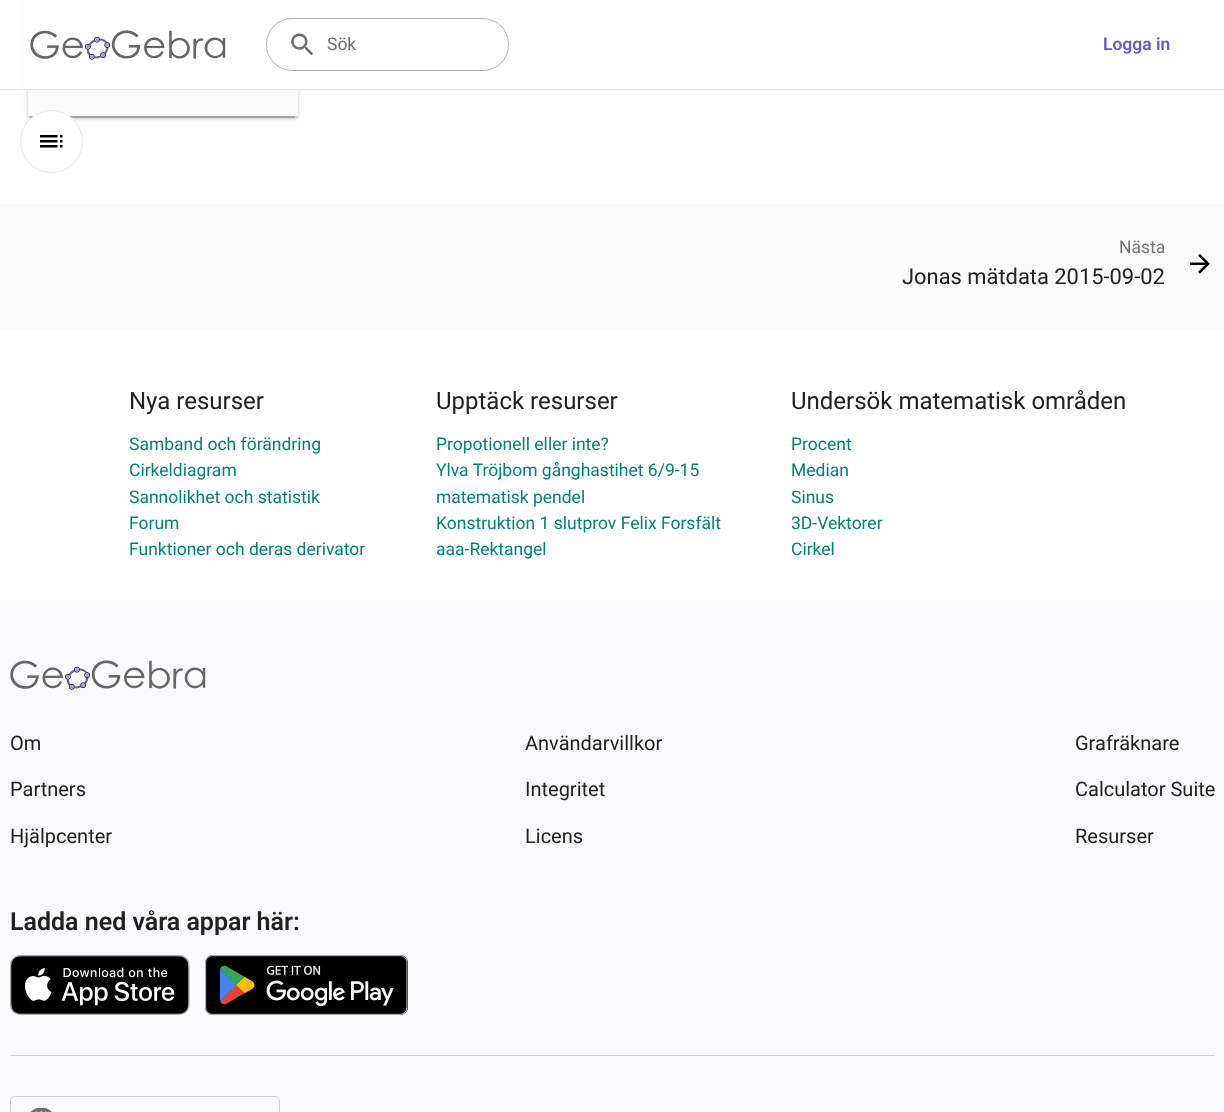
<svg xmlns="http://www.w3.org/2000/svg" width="1224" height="1112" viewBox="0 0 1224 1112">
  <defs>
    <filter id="blur1" x="-50%" y="-200%" width="200%" height="500%"><feGaussianBlur stdDeviation="3"/></filter>
    <filter id="blur2" x="-50%" y="-200%" width="200%" height="500%"><feGaussianBlur stdDeviation="1"/></filter>
    <filter id="blur3" x="-50%" y="-200%" width="200%" height="500%"><feGaussianBlur stdDeviation="0.5"/></filter>
  </defs>
  <rect width="100%" height="100%" fill="#ffffff"/>
  <rect x="28" y="-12" width="270" height="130" rx="2.5" fill="#000000" fill-opacity="0.12" filter="url(#blur1)"/>
  <rect x="28" y="-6" width="270" height="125" rx="2.5" fill="#000000" fill-opacity="0.14" filter="url(#blur2)"/>
  <rect x="30" y="-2" width="265" height="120" fill="#000000" fill-opacity="0.2" filter="url(#blur3)"/>
  <rect x="24" y="0" width="278" height="89" fill="#ffffff"/>
  <rect x="0" y="89" width="1224" height="1" fill="#e6e6eb"/>
  <image x="30" y="30" width="196" height="30" href="img1.png"/>
  <rect x="266.5" y="18.5" width="242" height="52" rx="25.5" fill="none" stroke="#b4b3ba"/>
  <image x="291" y="33" width="22" height="23" href="img2.png"/>
  <text x="327" y="50" font-family="Roboto" font-size="17.5" fill="#6e6d73">Sök</text>
  <text x="1103" y="50" font-family="Roboto" font-size="17.5" font-weight="600" fill="#6557d2">Logga in</text>
  <rect x="28" y="90" width="270" height="26" fill="#fafafa"/>
  <circle cx="51.5" cy="141.5" r="31" fill="#ffffff" stroke="#e5e7eb"/>
  <image x="40" y="135" width="23" height="13" href="img3.png"/>
  <rect x="0" y="204" width="1224" height="126" fill="#fafafa"/>
  <text x="1119" y="253" font-family="Roboto" font-size="17.5" fill="#737373">Nästa</text>
  <image x="1190" y="254" width="20" height="20" href="img4.png"/>
  <text x="902" y="284" font-family="Roboto" font-size="21.9" fill="#212121">Jonas mätdata 2015-09-02</text>
  <text x="129" y="409" font-family="Roboto" font-size="24" fill="#212121">Nya resurser</text>
  <text x="129" y="450" font-family="Roboto" font-size="17.5" fill="#008475">Samband och förändring</text>
  <text x="129" y="476" font-family="Roboto" font-size="17.5" fill="#008475">Cirkeldiagram</text>
  <text x="129" y="503" font-family="Roboto" font-size="17.5" fill="#008475">Sannolikhet och statistik</text>
  <text x="129" y="529" font-family="Roboto" font-size="17.5" fill="#008475">Forum</text>
  <text x="129" y="555" font-family="Roboto" font-size="17.5" fill="#008475">Funktioner och deras derivator</text>
  <text x="436" y="409" font-family="Roboto" font-size="24" fill="#212121">Upptäck resurser</text>
  <text x="436" y="450" font-family="Roboto" font-size="17.5" fill="#008475">Propotionell eller inte?</text>
  <text x="436" y="476" font-family="Roboto" font-size="17.5" fill="#008475">Ylva Tröjbom gånghastihet 6/9-15</text>
  <text x="436" y="503" font-family="Roboto" font-size="17.5" fill="#008475">matematisk pendel</text>
  <text x="436" y="529" font-family="Roboto" font-size="17.5" fill="#008475">Konstruktion 1 slutprov Felix Forsfält</text>
  <text x="436" y="555" font-family="Roboto" font-size="17.5" fill="#008475">aaa-Rektangel</text>
  <text x="791" y="409" font-family="Roboto" font-size="24" fill="#212121">Undersök matematisk områden</text>
  <text x="791" y="450" font-family="Roboto" font-size="17.5" fill="#008475">Procent</text>
  <text x="791" y="476" font-family="Roboto" font-size="17.5" fill="#008475">Median</text>
  <text x="791" y="503" font-family="Roboto" font-size="17.5" fill="#008475">Sinus</text>
  <text x="791" y="529" font-family="Roboto" font-size="17.5" fill="#008475">3D-Vektorer</text>
  <text x="791" y="555" font-family="Roboto" font-size="17.5" fill="#008475">Cirkel</text>
  <rect x="0" y="600" width="1224" height="512" fill="#fafafc"/>
  <image x="10" y="660" width="196" height="30" href="img5.png"/>
  <text x="10" y="750" font-family="Roboto" font-size="20" fill="#212121">Om</text>
  <text x="10" y="796" font-family="Roboto" font-size="20" fill="#212121">Partners</text>
  <text x="10" y="843" font-family="Roboto" font-size="20" fill="#212121">Hjälpcenter</text>
  <text x="525" y="750" font-family="Roboto" font-size="20" fill="#212121">Användarvillkor</text>
  <text x="525" y="796" font-family="Roboto" font-size="20" fill="#212121">Integritet</text>
  <text x="525" y="843" font-family="Roboto" font-size="20" fill="#212121">Licens</text>
  <text x="1075" y="750" font-family="Roboto" font-size="20" fill="#212121">Grafräknare</text>
  <text x="1075" y="796" font-family="Roboto" font-size="20" fill="#212121">Calculator Suite</text>
  <text x="1075" y="843" font-family="Roboto" font-size="20" fill="#212121">Resurser</text>
  <text x="10" y="930" font-family="Roboto" font-size="25" font-weight="600" fill="#212121">Ladda ned våra appar här:</text>
  <image x="10" y="955" width="180" height="60" href="img6.png"/>
  <image x="205" y="955" width="203" height="60" href="img7.png"/>
  <rect x="10" y="1055" width="1205" height="1" fill="#d1d0d6"/>
  <rect x="10.5" y="1096.5" width="269" height="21" rx="4.5" fill="none" stroke="#d1d0d6"/>
  <image x="30" y="1108" width="22" height="4" href="img8.png"/>
</svg>
